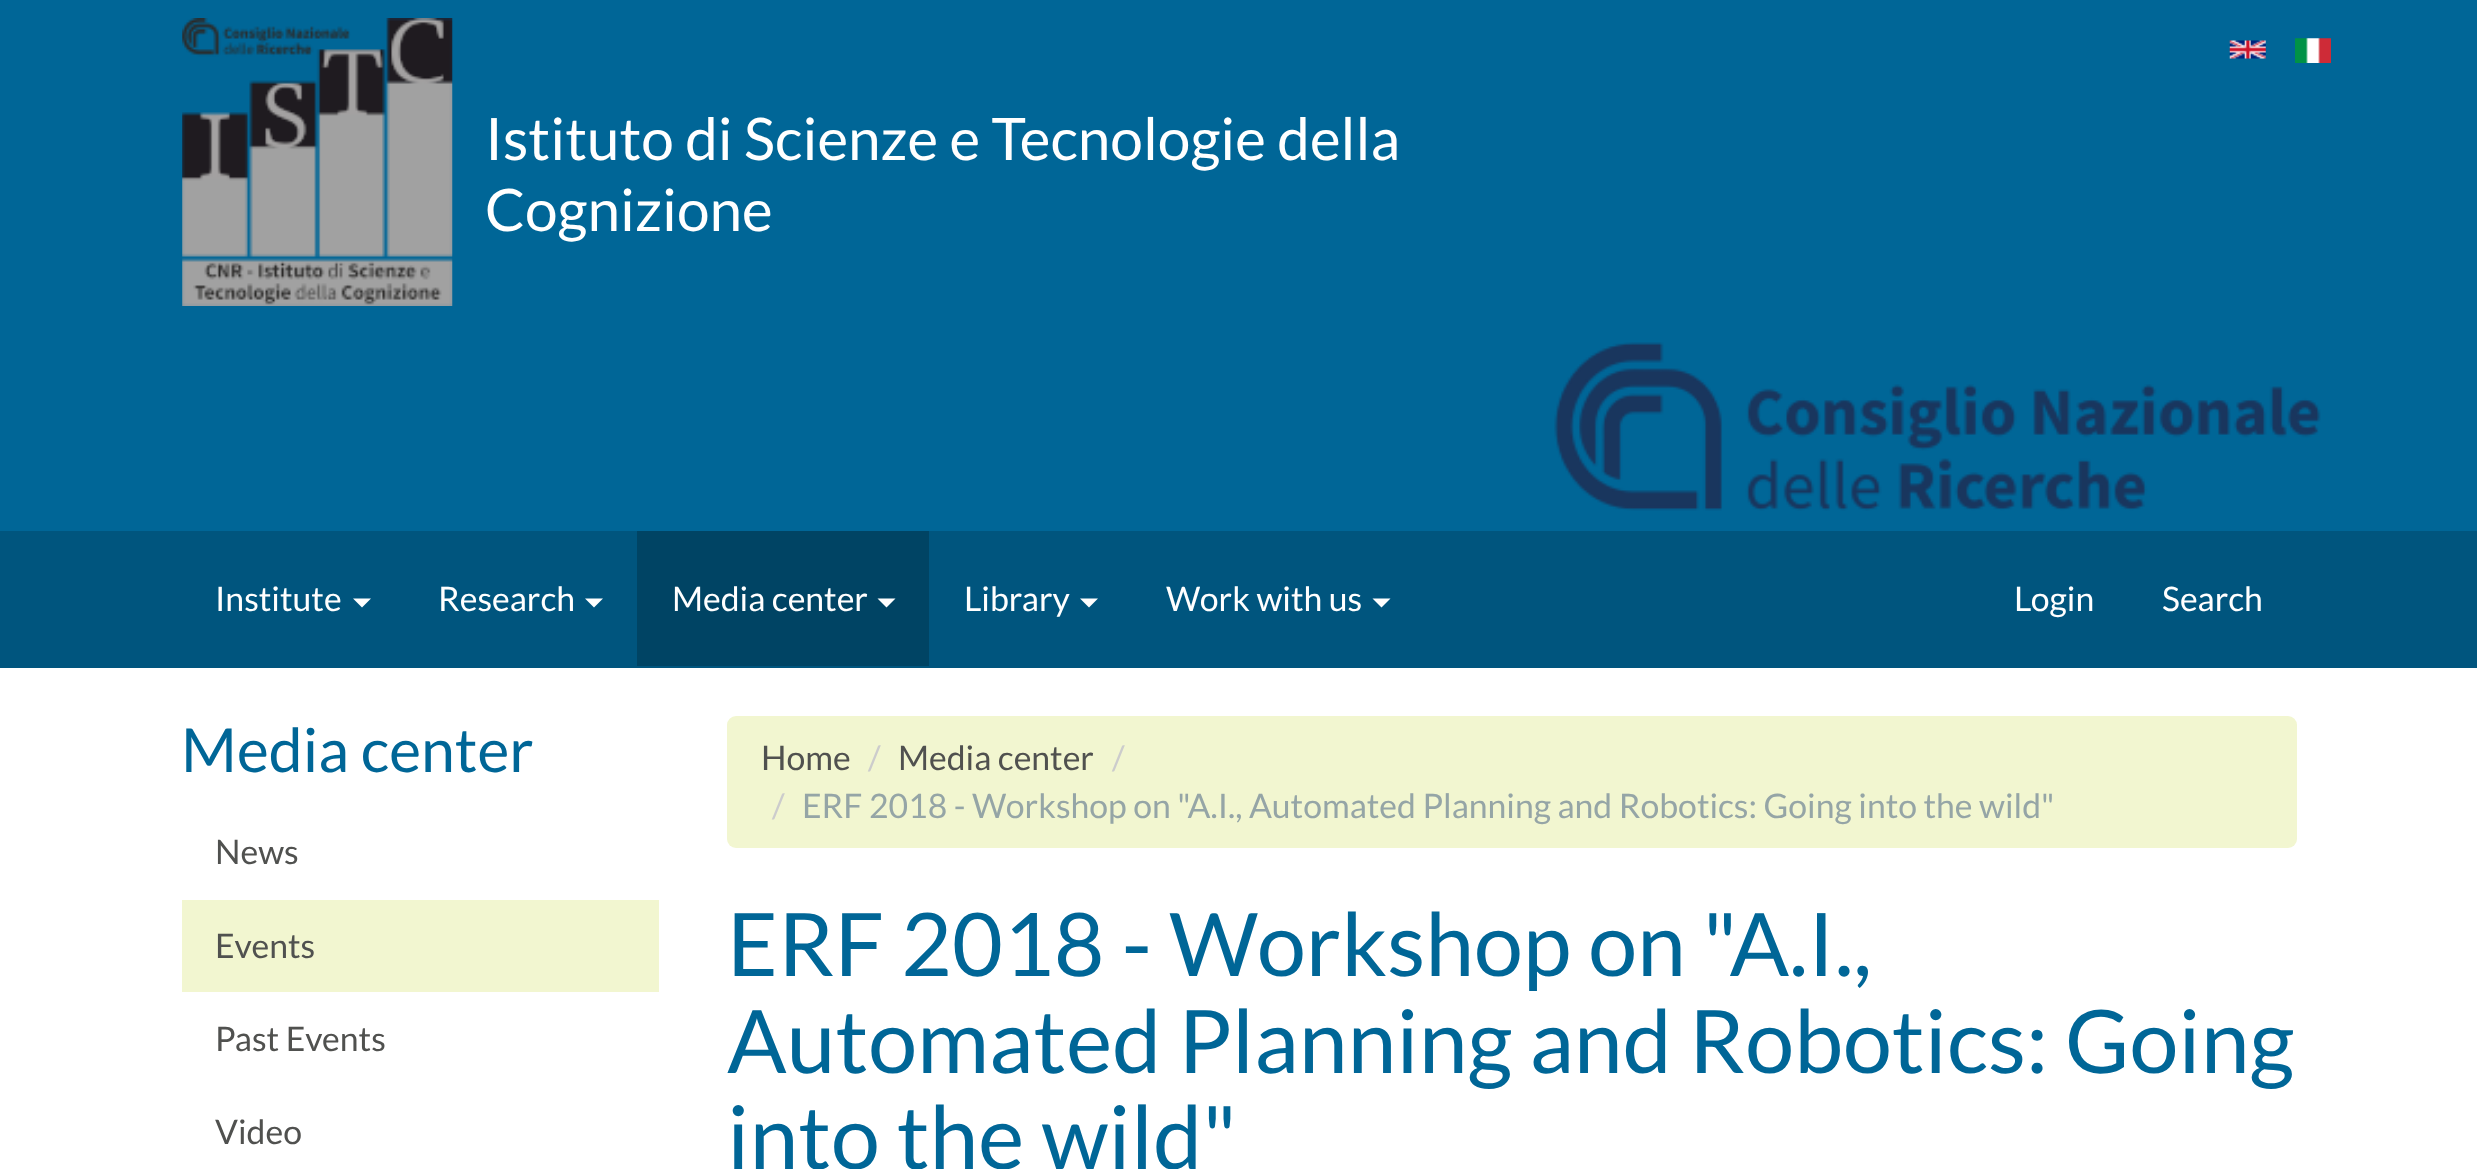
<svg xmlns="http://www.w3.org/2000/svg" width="2477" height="1169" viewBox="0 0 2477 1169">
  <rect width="100%" height="100%" fill="#ffffff"/>
  <rect x="0" y="0" width="2477" height="531" fill="#006697"/>
  <image x="182" y="18" width="271" height="288" href="img1.png"/>
  <text x="485" y="160" font-family="Lato" font-size="58.5" fill="#ffffff">Istituto di Scienze e Tecnologie della</text>
  <text x="485" y="231" font-family="Lato" font-size="58.5" fill="#ffffff">Cognizione</text>
  <image x="2229" y="40" width="37" height="19" href="img2.png"/>
  <image x="2295" y="38" width="36" height="25" href="img3.png"/>
  <image x="1554" y="342" width="767" height="169" href="img4.png"/>
  <rect x="0" y="531" width="2477" height="137" fill="#00557e"/>
  <text x="215" y="611" font-family="Lato" font-size="33.75" fill="#ffffff">Institute</text>
  <path d="M353 598.5H371L362 607.5Z" fill="#ffffff"/>
  <text x="438" y="611" font-family="Lato" font-size="33.75" fill="#ffffff">Research</text>
  <path d="M585 598.5H603L594 607.5Z" fill="#ffffff"/>
  <rect x="637" y="531" width="292" height="135" fill="#004464"/>
  <text x="672" y="611" font-family="Lato" font-size="33.75" fill="#ffffff">Media center</text>
  <path d="M877.5 598.5H895.5L886.5 607.5Z" fill="#ffffff"/>
  <text x="964" y="611" font-family="Lato" font-size="33.75" fill="#ffffff">Library</text>
  <path d="M1080 598.5H1098L1089 607.5Z" fill="#ffffff"/>
  <text x="1166" y="611" font-family="Lato" font-size="33.75" fill="#ffffff">Work with us</text>
  <path d="M1372.5 598.5H1390.5L1381.5 607.5Z" fill="#ffffff"/>
  <text x="2014" y="611" font-family="Lato" font-size="33.75" fill="#ffffff">Login</text>
  <text x="2162" y="611" font-family="Lato" font-size="33.75" fill="#ffffff">Search</text>
  <text x="181" y="772" font-family="Lato" font-size="60.75" fill="#006697">Media center</text>
  <text x="215" y="864" font-family="Lato" font-size="33.75" fill="#50514f">News</text>
  <rect x="182" y="900" width="477" height="92" fill="#f2f6d0"/>
  <text x="215" y="958" font-family="Lato" font-size="33.75" fill="#50514f">Events</text>
  <text x="215" y="1051" font-family="Lato" font-size="33.75" fill="#50514f">Past Events</text>
  <text x="215" y="1144" font-family="Lato" font-size="33.75" fill="#50514f">Video</text>
  <rect x="727" y="716" width="1570" height="132" rx="9" fill="#f2f6d0"/>
  <text x="761" y="770" font-family="Lato" font-size="33.75" fill="#50514f">Home</text>
  <text x="868" y="770" font-family="Lato" font-size="33.75" fill="#cccccc">/</text>
  <text x="898" y="770" font-family="Lato" font-size="33.75" fill="#50514f">Media center</text>
  <text x="1112" y="770" font-family="Lato" font-size="33.75" fill="#cccccc">/</text>
  <text x="772" y="818" font-family="Lato" font-size="33.75" fill="#cccccc">/</text>
  <text x="802" y="818" font-family="Lato" font-size="33.75" fill="#95a5a6">ERF 2018 - Workshop on "A.I., Automated Planning and Robotics: Going into the wild"</text>
  <text x="727" y="976" font-family="Lato" font-size="87.75" fill="#006697">ERF 2018 - Workshop on "A.I.,</text>
  <text x="727" y="1073" font-family="Lato" font-size="87.75" fill="#006697">Automated Planning and Robotics: Going</text>
  <text x="727" y="1169" font-family="Lato" font-size="87.75" fill="#006697">into the wild"</text>
</svg>
